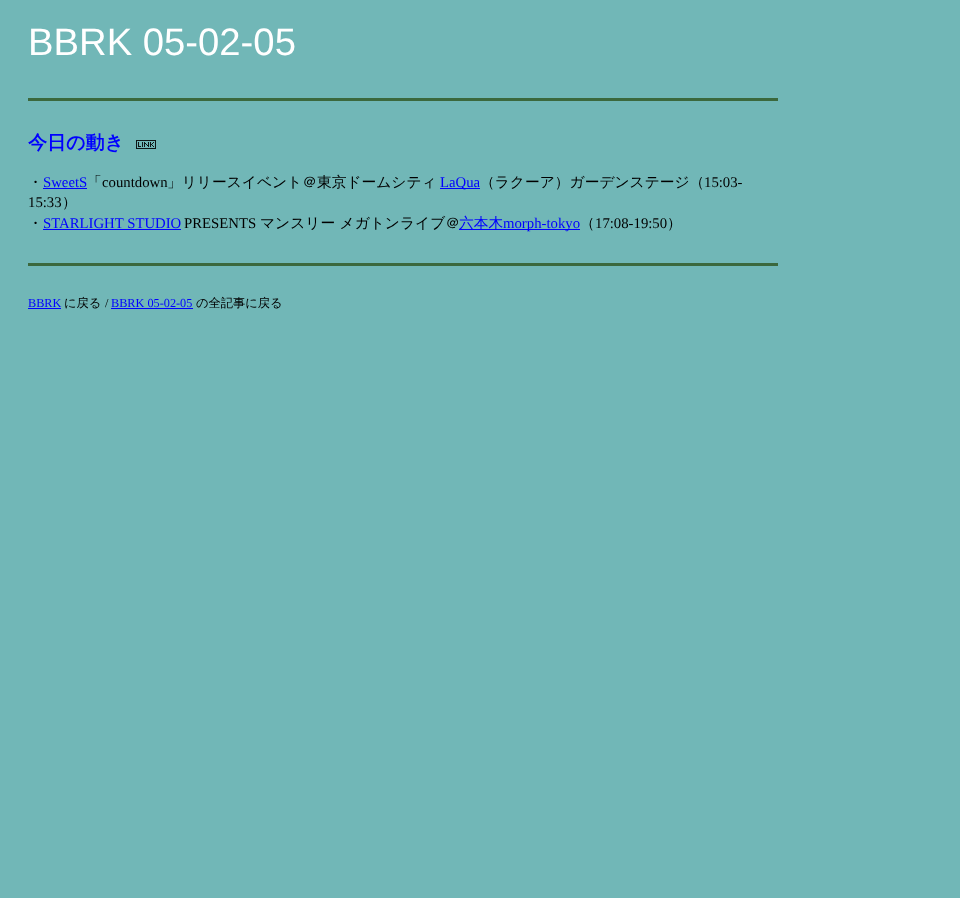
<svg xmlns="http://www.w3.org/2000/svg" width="960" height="898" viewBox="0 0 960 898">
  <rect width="100%" height="100%" fill="#71b7b7"/>
  <text x="28" y="55" font-family="Liberation Sans" font-size="38.25" fill="#ffffff">BBRK 05-02-05</text>
  <rect x="28" y="98" width="750" height="3" fill="#3b683d"/>
  <text x="28" y="149" font-family="WenQuanYi Zen Hei" font-size="19" font-weight="bold" fill="#0000ff">今日の動き</text>
  <image x="136" y="140" width="20" height="9" href="img1.png"/>
  <text x="28" y="187" font-family="WenQuanYi Zen Hei" font-size="14.75" font-weight="500" fill="#000000">・</text>
  <text x="43" y="187" font-family="Liberation Serif" font-size="14.75" fill="#0000ff">SweetS</text>
  <rect x="43" y="188" width="44" height="1" fill="#0000ff"/>
  <text x="87" y="187" font-family="WenQuanYi Zen Hei" font-size="14.75" font-weight="500" fill="#000000">「</text>
  <text x="102" y="187" font-family="Liberation Serif" font-size="14.75" fill="#000000">countdown</text>
  <text x="167" y="187" font-family="WenQuanYi Zen Hei" font-size="14.75" font-weight="500" fill="#000000">」リリースイベント＠東京ドームシティ</text>
  <rect x="440" y="188" width="40" height="1" fill="#0000ff"/>
  <text x="440" y="187" font-family="Liberation Serif" font-size="14.75" fill="#0000ff">LaQua</text>
  <text x="480" y="187" font-family="WenQuanYi Zen Hei" font-size="14.75" font-weight="500" fill="#000000">（ラクーア）ガーデンステージ（</text>
  <text x="704" y="187" font-family="Liberation Serif" font-size="14.75" fill="#000000">15:03-</text>
  <text x="28" y="207" font-family="Liberation Serif" font-size="14.75" fill="#000000">15:33</text>
  <text x="62" y="207" font-family="WenQuanYi Zen Hei" font-size="14.75" font-weight="500" fill="#000000">）</text>
  <text x="28" y="228" font-family="WenQuanYi Zen Hei" font-size="14.75" font-weight="500" fill="#000000">・</text>
  <text x="43" y="228" font-family="Liberation Serif" font-size="14.75" fill="#0000ff">STARLIGHT STUDIO</text>
  <rect x="43" y="229" width="138" height="1" fill="#0000ff"/>
  <text x="184" y="228" font-family="Liberation Serif" font-size="14.75" fill="#000000">PRESENTS</text>
  <text x="260" y="228" font-family="WenQuanYi Zen Hei" font-size="14.75" font-weight="500" fill="#000000">マンスリー メガトンライブ＠</text>
  <rect x="459" y="229" width="121" height="1" fill="#0000ff"/>
  <text x="459" y="228" font-family="WenQuanYi Zen Hei" font-size="14.75" font-weight="500" fill="#0000ff">六本木</text>
  <text x="503" y="228" font-family="Liberation Serif" font-size="14.75" fill="#0000ff">morph-tokyo</text>
  <text x="580" y="228" font-family="WenQuanYi Zen Hei" font-size="14.75" font-weight="500" fill="#000000">（</text>
  <text x="595" y="228" font-family="Liberation Serif" font-size="14.75" fill="#000000">17:08-19:50</text>
  <text x="667" y="228" font-family="WenQuanYi Zen Hei" font-size="14.75" font-weight="500" fill="#000000">）</text>
  <rect x="28" y="263" width="750" height="3" fill="#3b683d"/>
  <text x="28" y="307" font-family="Liberation Serif" font-size="12.25" fill="#0000ff">BBRK</text>
  <rect x="28" y="308" width="33" height="1" fill="#0000ff"/>
  <text x="64" y="307" font-family="WenQuanYi Zen Hei" font-size="12.25" font-weight="500" fill="#000000">に戻る</text>
  <text x="105" y="307" font-family="Liberation Serif" font-size="12.25" fill="#000000">/</text>
  <text x="111" y="307" font-family="Liberation Serif" font-size="12.25" fill="#0000ff">BBRK 05-02-05</text>
  <rect x="111" y="308" width="82" height="1" fill="#0000ff"/>
  <text x="196" y="307" font-family="WenQuanYi Zen Hei" font-size="12.25" font-weight="500" fill="#000000">の全記事に戻る</text>
</svg>
